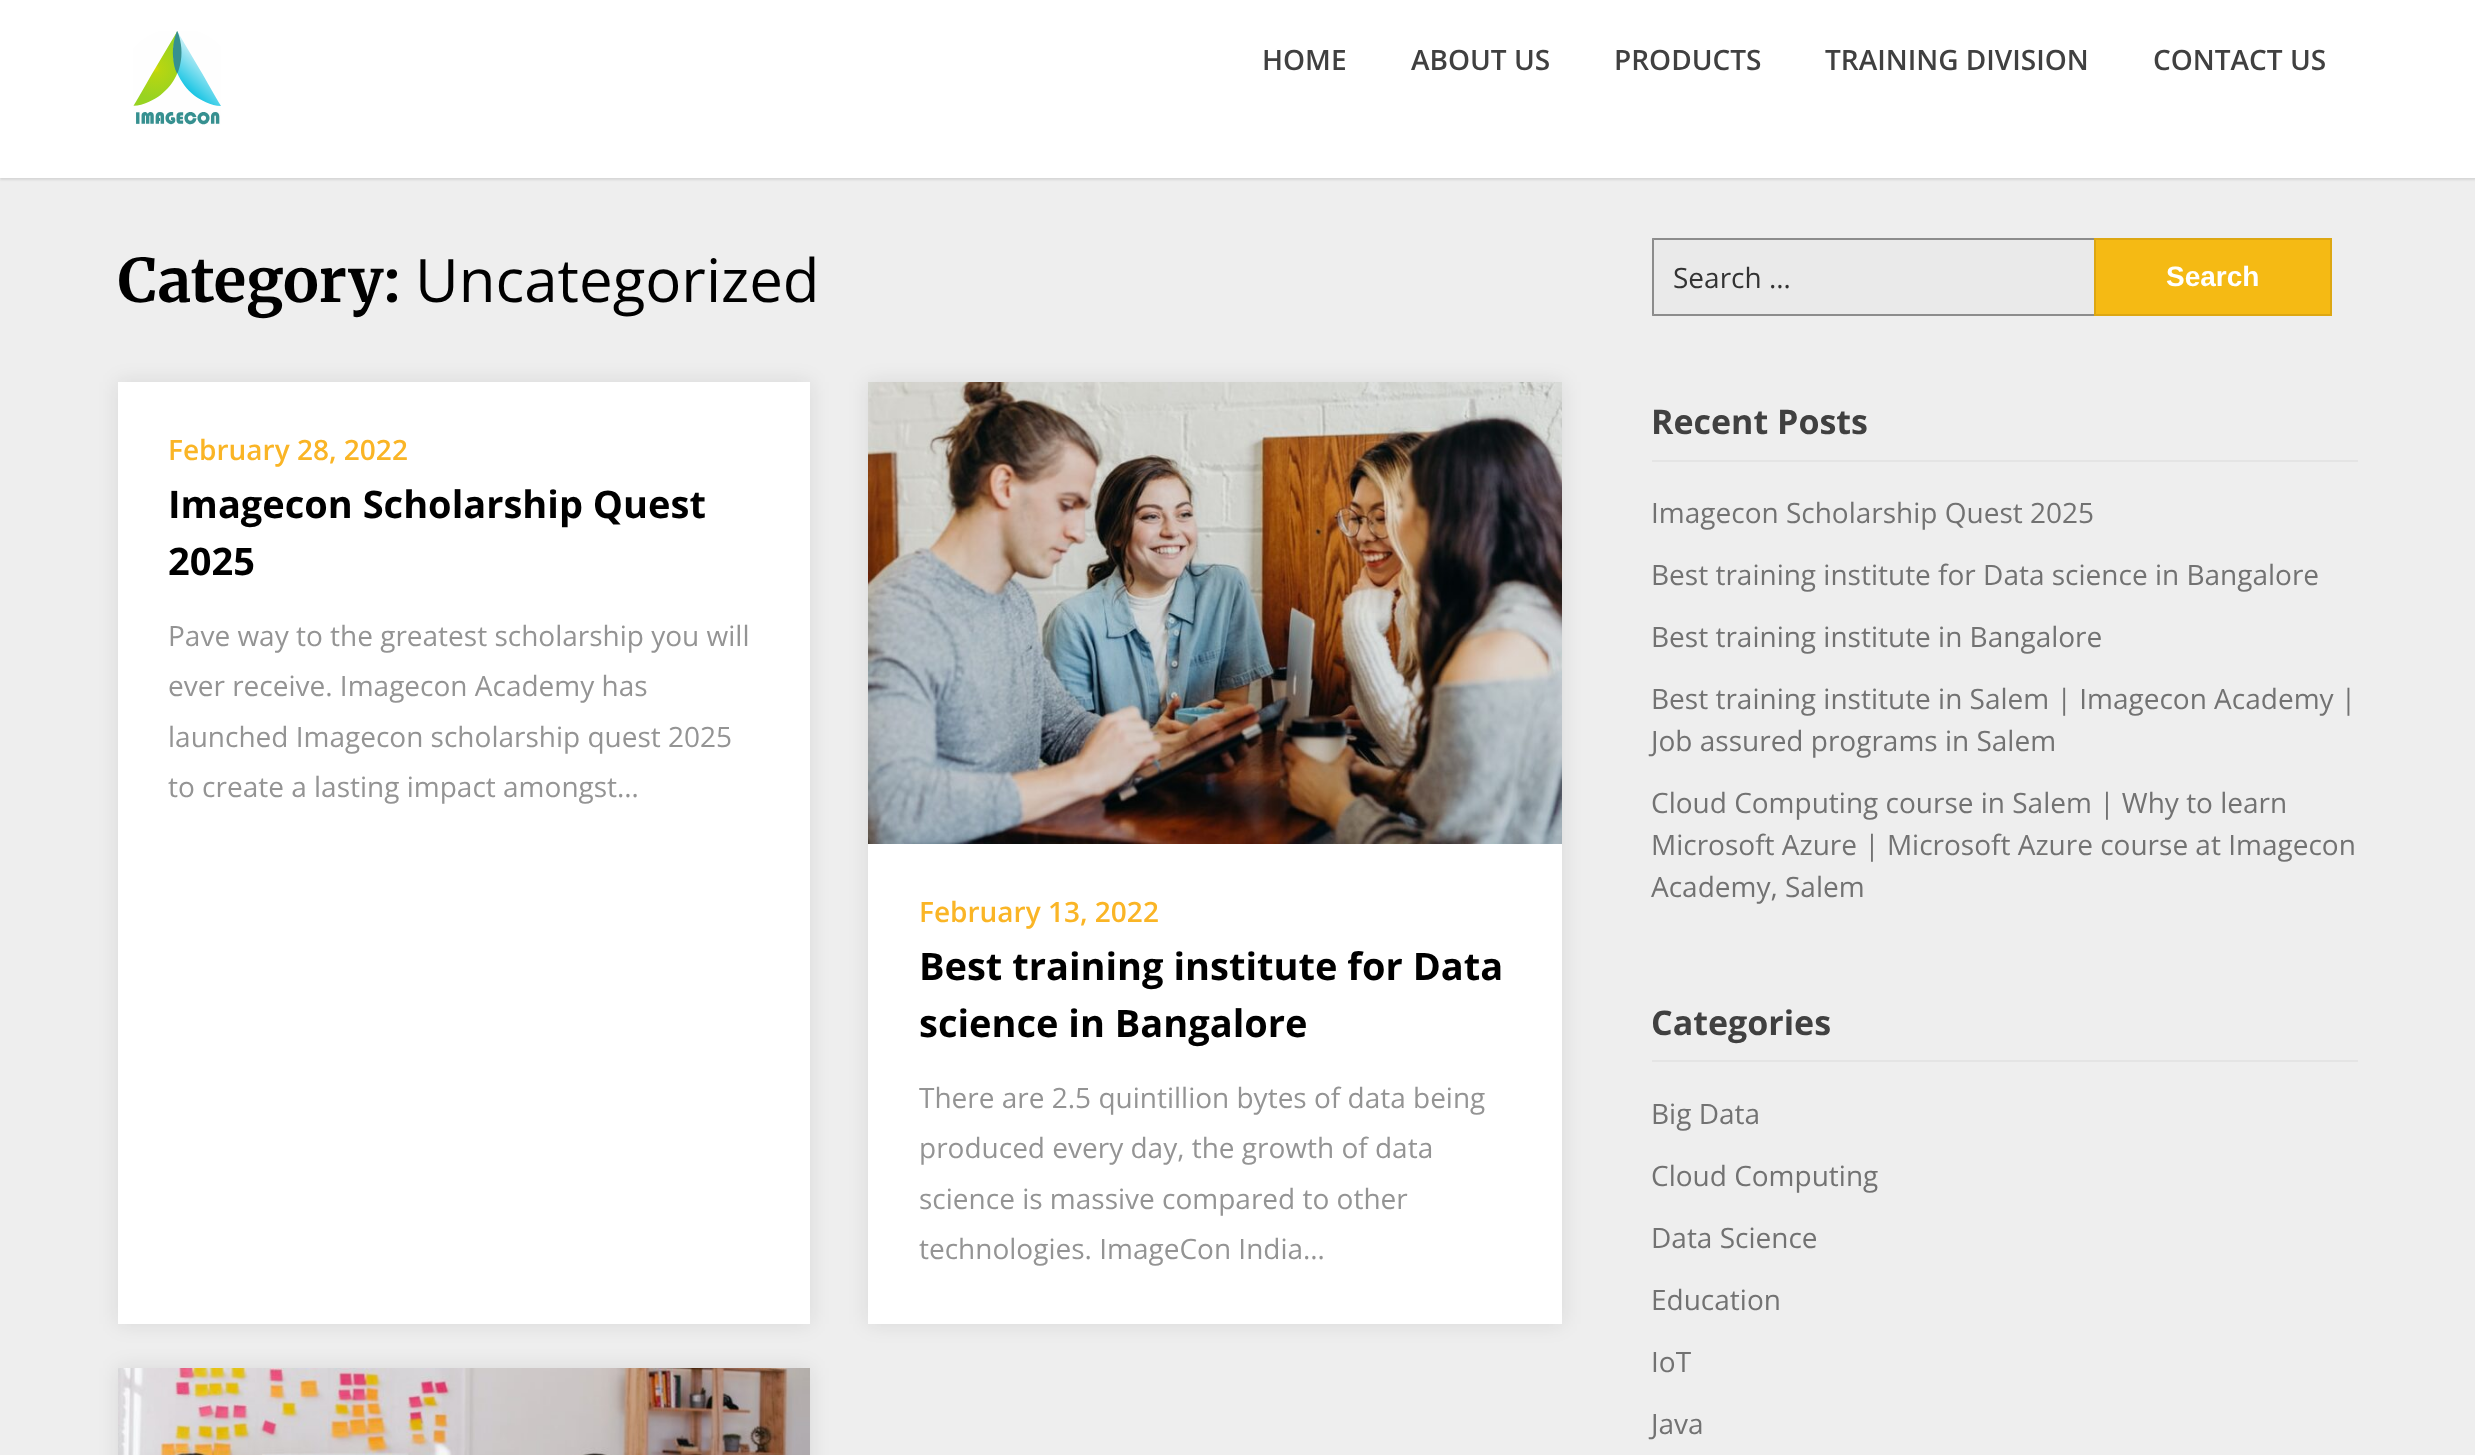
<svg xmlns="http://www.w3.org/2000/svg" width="2475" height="1455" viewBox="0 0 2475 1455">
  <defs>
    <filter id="blur1" x="-50%" y="-200%" width="200%" height="500%"><feGaussianBlur stdDeviation="1"/></filter>
    <filter id="blur2" x="-50%" y="-200%" width="200%" height="500%"><feGaussianBlur stdDeviation="10"/></filter>
  </defs>
  <rect width="100%" height="100%" fill="#eeeeee"/>
  <rect x="0" y="2" width="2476" height="178" fill="#000000" fill-opacity="0.1" filter="url(#blur1)"/>
  <rect x="0" y="0" width="2475" height="178" fill="#ffffff"/>
  <image x="133" y="31" width="88" height="94" href="img1.png"/>
  <text x="1262" y="70" font-family="Open Sans" font-size="28" font-weight="600" fill="#404040">HOME</text>
  <text x="1411" y="70" font-family="Open Sans" font-size="28" font-weight="600" fill="#404040">ABOUT US</text>
  <text x="1614" y="70" font-family="Open Sans" font-size="28" font-weight="600" fill="#404040">PRODUCTS</text>
  <text x="1825" y="70" font-family="Open Sans" font-size="28" font-weight="600" fill="#404040">TRAINING DIVISION</text>
  <text x="2153" y="70" font-family="Open Sans" font-size="28" font-weight="600" fill="#404040">CONTACT US</text>
  <text x="118" y="302" font-family="Merriweather" font-size="60" font-weight="bold" fill="#000000">Category:</text>
  <text x="415" y="302" font-family="Open Sans" font-size="60" fill="#000000">Uncategorized</text>
  <rect x="118" y="382" width="692" height="942" fill="#000000" fill-opacity="0.1" filter="url(#blur2)"/>
  <rect x="118" y="382" width="692" height="942" fill="#ffffff"/>
  <text x="168" y="460" font-family="Open Sans" font-size="28" font-weight="600" fill="#fab526">February 28, 2022</text>
  <text x="168" y="518" font-family="Open Sans" font-size="38" font-weight="bold" fill="#000000">Imagecon Scholarship Quest</text>
  <text x="168" y="575" font-family="Open Sans" font-size="38" font-weight="bold" fill="#000000">2025</text>
  <text x="168" y="646" font-family="Open Sans" font-size="28" fill="#949494">Pave way to the greatest scholarship you will</text>
  <text x="168" y="696" font-family="Open Sans" font-size="28" fill="#949494">ever receive. Imagecon Academy has</text>
  <text x="168" y="747" font-family="Open Sans" font-size="28" fill="#949494">launched Imagecon scholarship quest 2025</text>
  <text x="168" y="797" font-family="Open Sans" font-size="28" fill="#949494">to create a lasting impact amongst…</text>
  <rect x="868" y="382" width="694" height="942" fill="#000000" fill-opacity="0.1" filter="url(#blur2)"/>
  <rect x="868" y="844" width="694" height="480" fill="#ffffff"/>
  <image x="868" y="382" width="694" height="462" href="img2.png"/>
  <text x="919" y="922" font-family="Open Sans" font-size="28" font-weight="600" fill="#fab526">February 13, 2022</text>
  <text x="919" y="980" font-family="Open Sans" font-size="38" font-weight="bold" fill="#000000">Best training institute for Data</text>
  <text x="919" y="1037" font-family="Open Sans" font-size="38" font-weight="bold" fill="#000000">science in Bangalore</text>
  <text x="919" y="1108" font-family="Open Sans" font-size="28" fill="#949494">There are 2.5 quintillion bytes of data being</text>
  <text x="919" y="1158" font-family="Open Sans" font-size="28" fill="#949494">produced every day, the growth of data</text>
  <text x="919" y="1209" font-family="Open Sans" font-size="28" fill="#949494">science is massive compared to other</text>
  <text x="919" y="1259" font-family="Open Sans" font-size="28" fill="#949494">technologies. ImageCon India…</text>
  <rect x="118" y="1368" width="692" height="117" fill="#000000" fill-opacity="0.1" filter="url(#blur2)"/>
  <image x="118" y="1368" width="692" height="87" href="img3.png"/>
  <rect x="1652" y="238" width="442" height="78" fill="#eaeaea"/>
  <path d="M1652 238H2094V240H1654Z" fill="#8c8c8c"/>
  <path d="M2094 316H1652L1654 314H2094Z" fill="#8c8c8c"/>
  <path d="M1652 316V238L1654 240V314Z" fill="#000000" fill-opacity="0.4"/>
  <text x="1673" y="288" font-family="Open Sans" font-size="28" fill="#333333">Search …</text>
  <rect x="2095" y="239" width="236" height="76" fill="#f5ba14" stroke="#dda712" stroke-width="2"/>
  <text x="2166" y="286" font-family="Liberation Sans" font-size="28" font-weight="bold" fill="#ffffff">Search</text>
  <rect x="1652" y="460" width="706" height="2" fill="#e4e4e4"/>
  <text x="1651" y="434" font-family="Open Sans" font-size="34" font-weight="bold" fill="#404040">Recent Posts</text>
  <text x="1651" y="523" font-family="Open Sans" font-size="28" fill="#727272">Imagecon Scholarship Quest 2025</text>
  <text x="1651" y="585" font-family="Open Sans" font-size="28" fill="#727272">Best training institute for Data science in Bangalore</text>
  <text x="1651" y="647" font-family="Open Sans" font-size="28" fill="#727272">Best training institute in Bangalore</text>
  <text x="1651" y="709" font-family="Open Sans" font-size="28" fill="#727272">Best training institute in Salem | Imagecon Academy |</text>
  <text x="1651" y="751" font-family="Open Sans" font-size="28" fill="#727272">Job assured programs in Salem</text>
  <text x="1651" y="813" font-family="Open Sans" font-size="28" fill="#727272">Cloud Computing course in Salem | Why to learn</text>
  <text x="1651" y="855" font-family="Open Sans" font-size="28" fill="#727272">Microsoft Azure | Microsoft Azure course at Imagecon</text>
  <text x="1651" y="897" font-family="Open Sans" font-size="28" fill="#727272">Academy, Salem</text>
  <rect x="1652" y="1060" width="706" height="2" fill="#e4e4e4"/>
  <text x="1651" y="1035" font-family="Open Sans" font-size="34" font-weight="bold" fill="#404040">Categories</text>
  <text x="1651" y="1124" font-family="Open Sans" font-size="28" fill="#727272">Big Data</text>
  <text x="1651" y="1186" font-family="Open Sans" font-size="28" fill="#727272">Cloud Computing</text>
  <text x="1651" y="1248" font-family="Open Sans" font-size="28" fill="#727272">Data Science</text>
  <text x="1651" y="1310" font-family="Open Sans" font-size="28" fill="#727272">Education</text>
  <text x="1651" y="1372" font-family="Open Sans" font-size="28" fill="#727272">IoT</text>
  <text x="1651" y="1434" font-family="Open Sans" font-size="28" fill="#727272">Java</text>
</svg>
